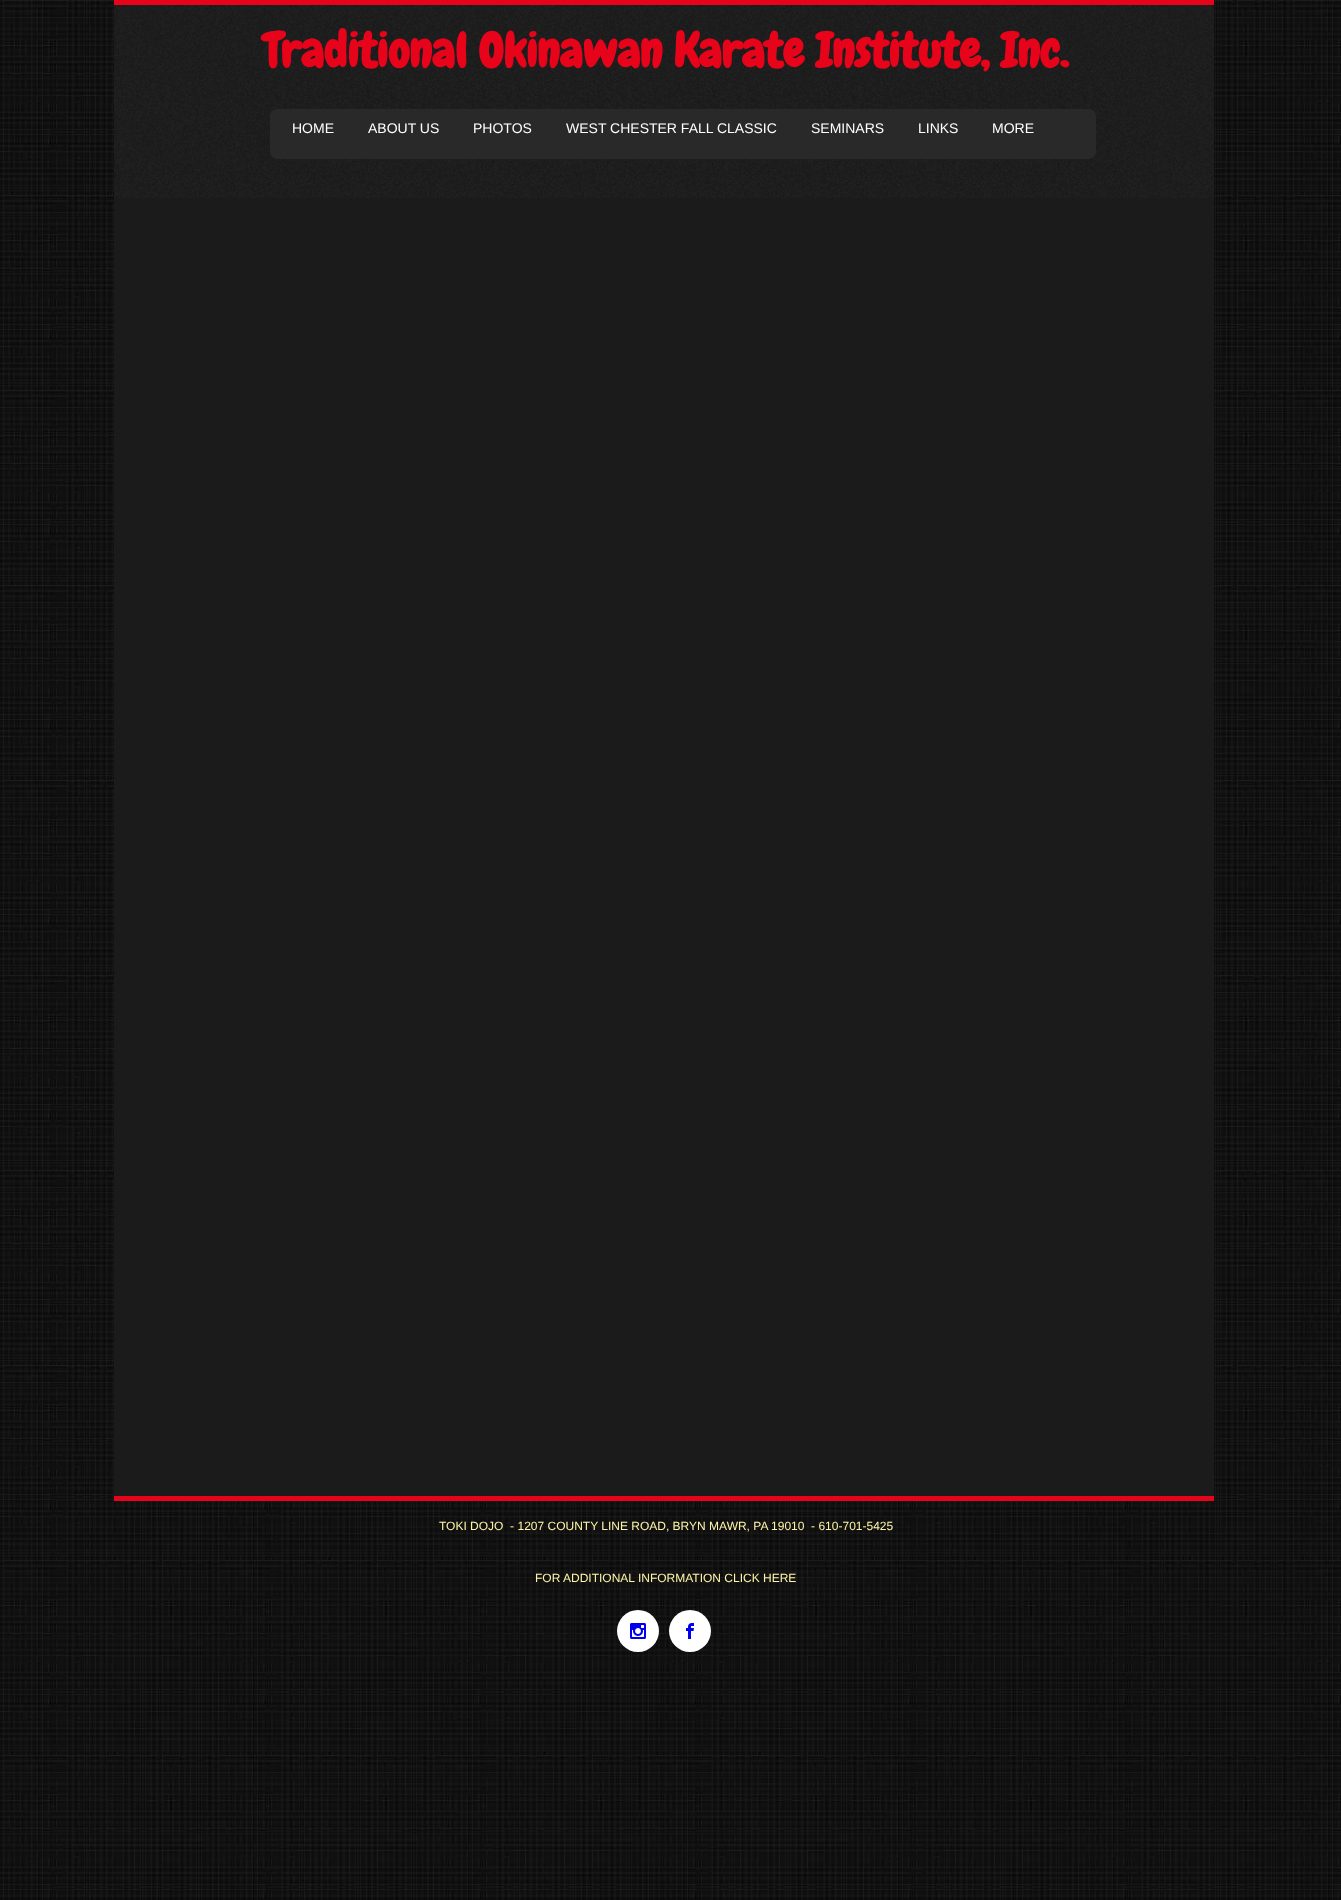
<svg xmlns="http://www.w3.org/2000/svg" width="1341" height="1900" viewBox="0 0 1341 1900">
  <rect width="100%" height="100%" fill="#ffffff"/>
  <image x="0" y="0" width="1341" height="1900" href="img1.png"/>
  <image x="114" y="5" width="1100" height="193" href="img2.png"/>
  <rect x="114" y="0" width="1100" height="5" fill="#e7031a"/>
  <text x="263" y="67" font-family="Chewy" font-size="48" font-weight="bold" fill="#e7031a">Traditional Okinawan Karate Institute, Inc.</text>
  <rect x="270" y="109" width="826" height="50" rx="7" fill="#292929"/>
  <text x="292" y="133" font-family="Liberation Sans" font-size="14" fill="#ffffff">HOME</text>
  <text x="368" y="133" font-family="Liberation Sans" font-size="14" fill="#ffffff">ABOUT US</text>
  <text x="473" y="133" font-family="Liberation Sans" font-size="14" fill="#ffffff">PHOTOS</text>
  <text x="566" y="133" font-family="Liberation Sans" font-size="14" fill="#ffffff">WEST CHESTER FALL CLASSIC</text>
  <text x="811" y="133" font-family="Liberation Sans" font-size="14" fill="#ffffff">SEMINARS</text>
  <text x="918" y="133" font-family="Liberation Sans" font-size="14" fill="#ffffff">LINKS</text>
  <text x="992" y="133" font-family="Liberation Sans" font-size="14" fill="#ffffff">MORE</text>
  <rect x="114" y="198" width="1100" height="1298" fill="#1b1b1b"/>
  <rect x="114" y="1496" width="1100" height="5" fill="#e7031a"/>
  <text x="439" y="1530" font-family="Liberation Sans" font-size="12" fill="#fff4a8" xml:space="preserve">TOKI DOJO  - 1207 COUNTY LINE ROAD, BRYN MAWR, PA 19010  - 610-701-5425</text>
  <text x="535" y="1582" font-family="Liberation Sans" font-size="12" fill="#fff4a8">FOR ADDITIONAL INFORMATION CLICK HERE</text>
  <circle cx="638" cy="1631" r="21" fill="#ffffff"/>
  <image x="630" y="1623" width="16" height="16" href="img3.png"/>
  <circle cx="690" cy="1631" r="21" fill="#ffffff"/>
  <image x="686" y="1623" width="8" height="16" href="img4.png"/>
</svg>
